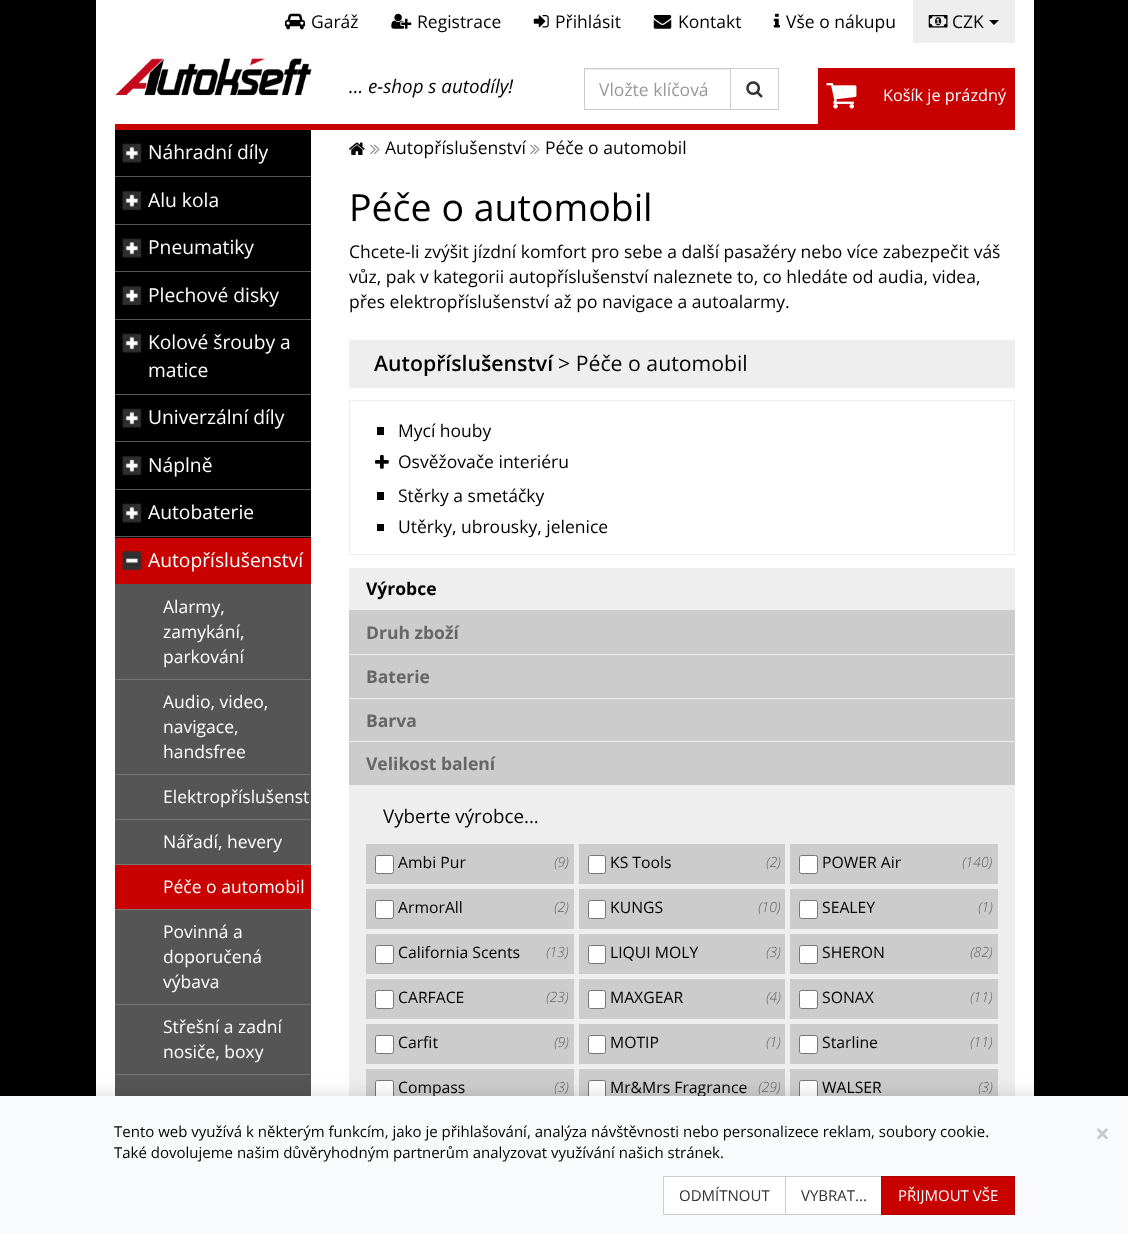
<svg xmlns="http://www.w3.org/2000/svg" width="1128" height="1233" viewBox="0 0 1128 1233">
  <defs>
    <filter id="blur1" x="-50%" y="-200%" width="200%" height="500%"><feGaussianBlur stdDeviation="9.5"/></filter>
  </defs>
  <rect width="100%" height="100%" fill="#000000"/>
  <rect x="96" y="0" width="938" height="1096" fill="#ffffff"/>
  <rect x="115" y="124" width="900" height="6" fill="#c80000"/>
  <image x="285" y="13" width="20" height="17" href="img1.png"/>
  <text x="311" y="28" font-family="Open Sans" font-size="17.5" fill="#000000">Garáž</text>
  <image x="391" y="13" width="21" height="16" href="img2.png"/>
  <text x="417" y="28" font-family="Open Sans" font-size="17.5" fill="#000000">Registrace</text>
  <image x="533" y="15" width="16" height="13" href="img3.png"/>
  <text x="555" y="28" font-family="Open Sans" font-size="17.5" fill="#000000">Přihlásit</text>
  <image x="653" y="15" width="19" height="14" href="img4.png"/>
  <text x="678" y="28" font-family="Open Sans" font-size="17.5" fill="#000000">Kontakt</text>
  <image x="773" y="13" width="7" height="15" href="img5.png"/>
  <text x="786" y="28" font-family="Open Sans" font-size="17.5" fill="#000000">Vše o nákupu</text>
  <rect x="913" y="0" width="102" height="43" fill="#eeeeee"/>
  <image x="928" y="15" width="20" height="13" href="img6.png"/>
  <text x="952" y="28" font-family="Open Sans" font-size="17.5" fill="#000000">CZK</text>
  <path d="M989 20H999L994 25Z" fill="#000000"/>
  <image x="115" y="58" width="197" height="38" href="img7.png"/>
  <text x="349" y="93" font-family="Open Sans" font-size="18.75" font-style="italic" fill="#000000">... e-shop s autodíly!</text>
  <rect x="585" y="69" width="145" height="1" fill="#ececec"/>
  <rect x="584.5" y="68.5" width="146" height="41" fill="none" stroke="#cccccc"/>
  <text x="599" y="96" font-family="Open Sans" font-size="17.5" fill="#999999">Vložte klíčová</text>
  <rect x="730.5" y="68.5" width="48" height="41" fill="none" stroke="#cccccc"/>
  <image x="746" y="81" width="17" height="17" href="img8.png"/>
  <rect x="818" y="68" width="197" height="56" fill="#c80000"/>
  <image x="826" y="83" width="31" height="26" href="img9.png"/>
  <text x="883" y="101" font-family="Open Sans" font-size="16.25" fill="#ffffff">Košík je prázdný</text>
  <rect x="115" y="130" width="196" height="408" fill="#000000"/>
  <rect x="115" y="176" width="196" height="1" fill="#555555"/>
  <image x="122" y="143" width="20" height="20" href="img10.png"/>
  <text x="148" y="159" font-family="Open Sans" font-size="19.25" fill="#ffffff">Náhradní díly</text>
  <rect x="115" y="224" width="196" height="1" fill="#555555"/>
  <image x="122" y="191" width="20" height="19" href="img11.png"/>
  <text x="148" y="207" font-family="Open Sans" font-size="19.25" fill="#ffffff">Alu kola</text>
  <rect x="115" y="271" width="196" height="1" fill="#555555"/>
  <image x="122" y="238" width="20" height="20" href="img10.png"/>
  <text x="148" y="254" font-family="Open Sans" font-size="19.25" fill="#ffffff">Pneumatiky</text>
  <rect x="115" y="319" width="196" height="1" fill="#555555"/>
  <image x="122" y="286" width="20" height="19" href="img12.png"/>
  <text x="148" y="302" font-family="Open Sans" font-size="19.25" fill="#ffffff">Plechové disky</text>
  <rect x="115" y="394" width="196" height="1" fill="#555555"/>
  <image x="122" y="333" width="20" height="20" href="img10.png"/>
  <text x="148" y="349" font-family="Open Sans" font-size="19.25" fill="#ffffff">Kolové šrouby a</text>
  <text x="148" y="377" font-family="Open Sans" font-size="19.25" fill="#ffffff">matice</text>
  <rect x="115" y="441" width="196" height="1" fill="#555555"/>
  <image x="122" y="408" width="20" height="20" href="img10.png"/>
  <text x="148" y="424" font-family="Open Sans" font-size="19.25" fill="#ffffff">Univerzální díly</text>
  <rect x="115" y="489" width="196" height="1" fill="#555555"/>
  <image x="122" y="456" width="20" height="19" href="img11.png"/>
  <text x="148" y="472" font-family="Open Sans" font-size="19.25" fill="#ffffff">Náplně</text>
  <rect x="115" y="536" width="196" height="1" fill="#555555"/>
  <image x="122" y="503" width="20" height="20" href="img10.png"/>
  <text x="148" y="519" font-family="Open Sans" font-size="19.25" fill="#ffffff">Autobaterie</text>
  <rect x="115" y="538" width="196" height="46" fill="#c80000"/>
  <image x="122" y="551" width="20" height="19" href="img13.png"/>
  <text x="148" y="567" font-family="Open Sans" font-size="19.25" fill="#ffffff">Autopříslušenství</text>
  <rect x="115" y="584" width="196" height="512" fill="#555555"/>
  <rect x="115" y="679" width="196" height="1" fill="#777777"/>
  <text x="163" y="613" font-family="Open Sans" font-size="17.5" fill="#ffffff">Alarmy,</text>
  <text x="163" y="638" font-family="Open Sans" font-size="17.5" fill="#ffffff">zamykání,</text>
  <text x="163" y="663" font-family="Open Sans" font-size="17.5" fill="#ffffff">parkování</text>
  <rect x="115" y="774" width="196" height="1" fill="#777777"/>
  <text x="163" y="708" font-family="Open Sans" font-size="17.5" fill="#ffffff">Audio, video,</text>
  <text x="163" y="733" font-family="Open Sans" font-size="17.5" fill="#ffffff">navigace,</text>
  <text x="163" y="758" font-family="Open Sans" font-size="17.5" fill="#ffffff">handsfree</text>
  <rect x="115" y="819" width="196" height="1" fill="#777777"/>
  <text x="163" y="803" font-family="Open Sans" font-size="17.5" fill="#ffffff">Elektropříslušenst</text>
  <rect x="115" y="864" width="196" height="1" fill="#777777"/>
  <text x="163" y="848" font-family="Open Sans" font-size="17.5" fill="#ffffff">Nářadí, hevery</text>
  <rect x="115" y="865" width="196" height="44" fill="#c80000"/>
  <rect x="115" y="909" width="196" height="1" fill="#777777"/>
  <text x="163" y="893" font-family="Open Sans" font-size="17.5" fill="#ffffff">Péče o automobil</text>
  <rect x="115" y="1004" width="196" height="1" fill="#777777"/>
  <text x="163" y="938" font-family="Open Sans" font-size="17.5" fill="#ffffff">Povinná a</text>
  <text x="163" y="963" font-family="Open Sans" font-size="17.5" fill="#ffffff">doporučená</text>
  <text x="163" y="988" font-family="Open Sans" font-size="17.5" fill="#ffffff">výbava</text>
  <rect x="115" y="1074" width="196" height="1" fill="#777777"/>
  <text x="163" y="1033" font-family="Open Sans" font-size="17.5" fill="#ffffff">Střešní a zadní</text>
  <text x="163" y="1058" font-family="Open Sans" font-size="17.5" fill="#ffffff">nosiče, boxy</text>
  <image x="349" y="142" width="16" height="13" href="img14.png"/>
  <image x="370" y="144" width="10" height="11" href="img15.png"/>
  <text x="385" y="154" font-family="Open Sans" font-size="17.5" fill="#000000">Autopříslušenství</text>
  <image x="530" y="144" width="10" height="11" href="img15.png"/>
  <text x="545" y="154" font-family="Open Sans" font-size="17.5" fill="#000000">Péče o automobil</text>
  <text x="349" y="221" font-family="Open Sans" font-size="37.5" fill="#000000">Péče o automobil</text>
  <text x="349" y="258" font-family="Open Sans" font-size="17.5" fill="#000000">Chcete-li zvýšit jízdní komfort pro sebe a další pasažéry nebo více zabezpečit váš</text>
  <text x="349" y="283" font-family="Open Sans" font-size="17.5" fill="#000000">vůz, pak v kategorii autopříslušenství naleznete to, co hledáte od audia, videa,</text>
  <text x="349" y="308" font-family="Open Sans" font-size="17.5" fill="#000000">přes elektropříslušenství až po navigace a autoalarmy.</text>
  <rect x="349" y="340" width="666" height="48" fill="#eeeeee"/>
  <text x="374" y="371" font-family="Open Sans" font-size="21.25" font-weight="600" fill="#000000">Autopříslušenství</text>
  <text x="558" y="371" font-family="Open Sans" font-size="21.25" fill="#000000">&gt; Péče o automobil</text>
  <rect x="349.5" y="400.5" width="665" height="154" fill="none" stroke="#eeeeee"/>
  <rect x="377" y="427" width="7" height="8" fill="#000000"/>
  <text x="398" y="437" font-family="Open Sans" font-size="17.5" fill="#000000">Mycí houby</text>
  <image x="375" y="455" width="14" height="14" href="img16.png"/>
  <text x="398" y="468" font-family="Open Sans" font-size="17.5" fill="#000000">Osvěžovače interiéru</text>
  <rect x="377" y="492" width="7" height="8" fill="#000000"/>
  <text x="398" y="502" font-family="Open Sans" font-size="17.5" fill="#000000">Stěrky a smetáčky</text>
  <rect x="377" y="524" width="7" height="7" fill="#000000"/>
  <text x="398" y="533" font-family="Open Sans" font-size="17.5" fill="#000000">Utěrky, ubrousky, jelenice</text>
  <rect x="349" y="610" width="666" height="175" fill="#cccccc"/>
  <rect x="349" y="568" width="666" height="42" fill="#eeeeee"/>
  <text x="366" y="595" font-family="Open Sans" font-size="17.5" font-weight="bold" fill="#000000">Výrobce</text>
  <rect x="349" y="654" width="666" height="1" fill="#eeeeee"/>
  <text x="366" y="639" font-family="Open Sans" font-size="17.5" font-weight="bold" fill="#666666">Druh zboží</text>
  <rect x="349" y="698" width="666" height="1" fill="#eeeeee"/>
  <text x="366" y="683" font-family="Open Sans" font-size="17.5" font-weight="bold" fill="#666666">Baterie</text>
  <rect x="349" y="741" width="666" height="1" fill="#eeeeee"/>
  <text x="366" y="727" font-family="Open Sans" font-size="17.5" font-weight="bold" fill="#666666">Barva</text>
  <text x="366" y="770" font-family="Open Sans" font-size="17.5" font-weight="bold" fill="#666666">Velikost balení</text>
  <rect x="349" y="785" width="666" height="311" fill="#eeeeee"/>
  <text x="383" y="823" font-family="Open Sans" font-size="18.75" fill="#000000">Vyberte výrobce...</text>
  <rect x="366" y="844" width="208" height="40" fill="#cccccc"/>
  <rect x="375.5" y="855.5" width="18" height="18" rx="2" fill="#ffffff" stroke="#767676"/>
  <text x="398" y="868" font-family="Open Sans" font-size="15.75" fill="#000000">Ambi Pur</text>
  <text x="554" y="867" font-family="Open Sans" font-size="14" font-weight="300" font-style="italic" fill="#666666">(9)</text>
  <rect x="366" y="889" width="208" height="40" fill="#cccccc"/>
  <rect x="375.5" y="900.5" width="18" height="18" rx="2" fill="#ffffff" stroke="#767676"/>
  <text x="398" y="913" font-family="Open Sans" font-size="15.75" fill="#000000">ArmorAll</text>
  <text x="554" y="912" font-family="Open Sans" font-size="14" font-weight="300" font-style="italic" fill="#666666">(2)</text>
  <rect x="366" y="934" width="208" height="40" fill="#cccccc"/>
  <rect x="375.5" y="945.5" width="18" height="18" rx="2" fill="#ffffff" stroke="#767676"/>
  <text x="398" y="958" font-family="Open Sans" font-size="15.75" fill="#000000">California Scents</text>
  <text x="546" y="957" font-family="Open Sans" font-size="14" font-weight="300" font-style="italic" fill="#666666">(13)</text>
  <rect x="366" y="979" width="208" height="40" fill="#cccccc"/>
  <rect x="375.5" y="990.5" width="18" height="18" rx="2" fill="#ffffff" stroke="#767676"/>
  <text x="398" y="1003" font-family="Open Sans" font-size="15.75" fill="#000000">CARFACE</text>
  <text x="546" y="1002" font-family="Open Sans" font-size="14" font-weight="300" font-style="italic" fill="#666666">(23)</text>
  <rect x="366" y="1024" width="208" height="40" fill="#cccccc"/>
  <rect x="375.5" y="1035.5" width="18" height="18" rx="2" fill="#ffffff" stroke="#767676"/>
  <text x="398" y="1048" font-family="Open Sans" font-size="15.75" fill="#000000">Carfit</text>
  <text x="554" y="1047" font-family="Open Sans" font-size="14" font-weight="300" font-style="italic" fill="#666666">(9)</text>
  <rect x="366" y="1069" width="208" height="27" fill="#cccccc"/>
  <rect x="375.5" y="1080.5" width="18" height="18" rx="2" fill="#ffffff" stroke="#767676"/>
  <text x="398" y="1093" font-family="Open Sans" font-size="15.75" fill="#000000">Compass</text>
  <text x="554" y="1092" font-family="Open Sans" font-size="14" font-weight="300" font-style="italic" fill="#666666">(3)</text>
  <rect x="579" y="844" width="206" height="40" fill="#cccccc"/>
  <rect x="588.5" y="855.5" width="17" height="18" rx="2" fill="#ffffff" stroke="#767676"/>
  <text x="610" y="868" font-family="Open Sans" font-size="15.75" fill="#000000">KS Tools</text>
  <text x="766" y="867" font-family="Open Sans" font-size="14" font-weight="300" font-style="italic" fill="#666666">(2)</text>
  <rect x="579" y="889" width="206" height="40" fill="#cccccc"/>
  <rect x="588.5" y="900.5" width="17" height="18" rx="2" fill="#ffffff" stroke="#767676"/>
  <text x="610" y="913" font-family="Open Sans" font-size="15.75" fill="#000000">KUNGS</text>
  <text x="758" y="912" font-family="Open Sans" font-size="14" font-weight="300" font-style="italic" fill="#666666">(10)</text>
  <rect x="579" y="934" width="206" height="40" fill="#cccccc"/>
  <rect x="588.5" y="945.5" width="17" height="18" rx="2" fill="#ffffff" stroke="#767676"/>
  <text x="610" y="958" font-family="Open Sans" font-size="15.75" fill="#000000">LIQUI MOLY</text>
  <text x="766" y="957" font-family="Open Sans" font-size="14" font-weight="300" font-style="italic" fill="#666666">(3)</text>
  <rect x="579" y="979" width="206" height="40" fill="#cccccc"/>
  <rect x="588.5" y="990.5" width="17" height="18" rx="2" fill="#ffffff" stroke="#767676"/>
  <text x="610" y="1003" font-family="Open Sans" font-size="15.75" fill="#000000">MAXGEAR</text>
  <text x="766" y="1002" font-family="Open Sans" font-size="14" font-weight="300" font-style="italic" fill="#666666">(4)</text>
  <rect x="579" y="1024" width="206" height="40" fill="#cccccc"/>
  <rect x="588.5" y="1035.5" width="17" height="18" rx="2" fill="#ffffff" stroke="#767676"/>
  <text x="610" y="1048" font-family="Open Sans" font-size="15.75" fill="#000000">MOTIP</text>
  <text x="766" y="1047" font-family="Open Sans" font-size="14" font-weight="300" font-style="italic" fill="#666666">(1)</text>
  <rect x="579" y="1069" width="206" height="27" fill="#cccccc"/>
  <rect x="588.5" y="1080.5" width="17" height="18" rx="2" fill="#ffffff" stroke="#767676"/>
  <text x="610" y="1093" font-family="Open Sans" font-size="15.75" fill="#000000">Mr&amp;Mrs Fragrance</text>
  <text x="758" y="1092" font-family="Open Sans" font-size="14" font-weight="300" font-style="italic" fill="#666666">(29)</text>
  <rect x="790" y="844" width="208" height="40" fill="#cccccc"/>
  <rect x="799.5" y="855.5" width="18" height="18" rx="2" fill="#ffffff" stroke="#767676"/>
  <text x="822" y="868" font-family="Open Sans" font-size="15.75" fill="#000000">POWER Air</text>
  <text x="962" y="867" font-family="Open Sans" font-size="14" font-weight="300" font-style="italic" fill="#666666">(140)</text>
  <rect x="790" y="889" width="208" height="40" fill="#cccccc"/>
  <rect x="799.5" y="900.5" width="18" height="18" rx="2" fill="#ffffff" stroke="#767676"/>
  <text x="822" y="913" font-family="Open Sans" font-size="15.75" fill="#000000">SEALEY</text>
  <text x="978" y="912" font-family="Open Sans" font-size="14" font-weight="300" font-style="italic" fill="#666666">(1)</text>
  <rect x="790" y="934" width="208" height="40" fill="#cccccc"/>
  <rect x="799.5" y="945.5" width="18" height="18" rx="2" fill="#ffffff" stroke="#767676"/>
  <text x="822" y="958" font-family="Open Sans" font-size="15.75" fill="#000000">SHERON</text>
  <text x="970" y="957" font-family="Open Sans" font-size="14" font-weight="300" font-style="italic" fill="#666666">(82)</text>
  <rect x="790" y="979" width="208" height="40" fill="#cccccc"/>
  <rect x="799.5" y="990.5" width="18" height="18" rx="2" fill="#ffffff" stroke="#767676"/>
  <text x="822" y="1003" font-family="Open Sans" font-size="15.75" fill="#000000">SONAX</text>
  <text x="970" y="1002" font-family="Open Sans" font-size="14" font-weight="300" font-style="italic" fill="#666666">(11)</text>
  <rect x="790" y="1024" width="208" height="40" fill="#cccccc"/>
  <rect x="799.5" y="1035.5" width="18" height="18" rx="2" fill="#ffffff" stroke="#767676"/>
  <text x="822" y="1048" font-family="Open Sans" font-size="15.75" fill="#000000">Starline</text>
  <text x="970" y="1047" font-family="Open Sans" font-size="14" font-weight="300" font-style="italic" fill="#666666">(11)</text>
  <rect x="790" y="1069" width="208" height="27" fill="#cccccc"/>
  <rect x="799.5" y="1080.5" width="18" height="18" rx="2" fill="#ffffff" stroke="#767676"/>
  <text x="822" y="1093" font-family="Open Sans" font-size="15.75" fill="#000000">WALSER</text>
  <text x="978" y="1092" font-family="Open Sans" font-size="14" font-weight="300" font-style="italic" fill="#666666">(3)</text>
  <rect x="0" y="1096" width="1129" height="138" fill="#373737" fill-opacity="0.15" filter="url(#blur1)"/>
  <rect x="0" y="1096" width="1128" height="137" fill="#f9fafc"/>
  <text x="114" y="1137" font-family="Open Sans" font-size="15" fill="#000000">Tento web využívá k některým funkcím, jako je přihlašování, analýza návštěvnosti nebo personalizece reklam, soubory cookie.</text>
  <text x="114" y="1158" font-family="Open Sans" font-size="15" fill="#000000">Také dovolujeme našim důvěryhodným partnerům analyzovat využívání našich stránek.</text>
  <rect x="663.5" y="1176.5" width="122" height="38" fill="#ffffff" stroke="#cccccc"/>
  <text x="679" y="1201" font-family="Open Sans" font-size="15" fill="#333333">ODMÍTNOUT</text>
  <rect x="786" y="1177" width="95" height="37" fill="#ffffff"/>
  <rect x="785.5" y="1176.5" width="97" height="38" fill="none" stroke="#cccccc"/>
  <text x="801" y="1201" font-family="Open Sans" font-size="15" fill="#333333">VYBRAT...</text>
  <rect x="881.5" y="1176.5" width="133" height="38" fill="#c80000" stroke="#af0000"/>
  <text x="898" y="1201" font-family="Open Sans" font-size="15" fill="#ffffff">PŘIJMOUT VŠE</text>
  <text x="1095" y="1143" font-family="Open Sans" font-size="26" font-weight="bold" fill="#c7c8ca">×</text>
</svg>
